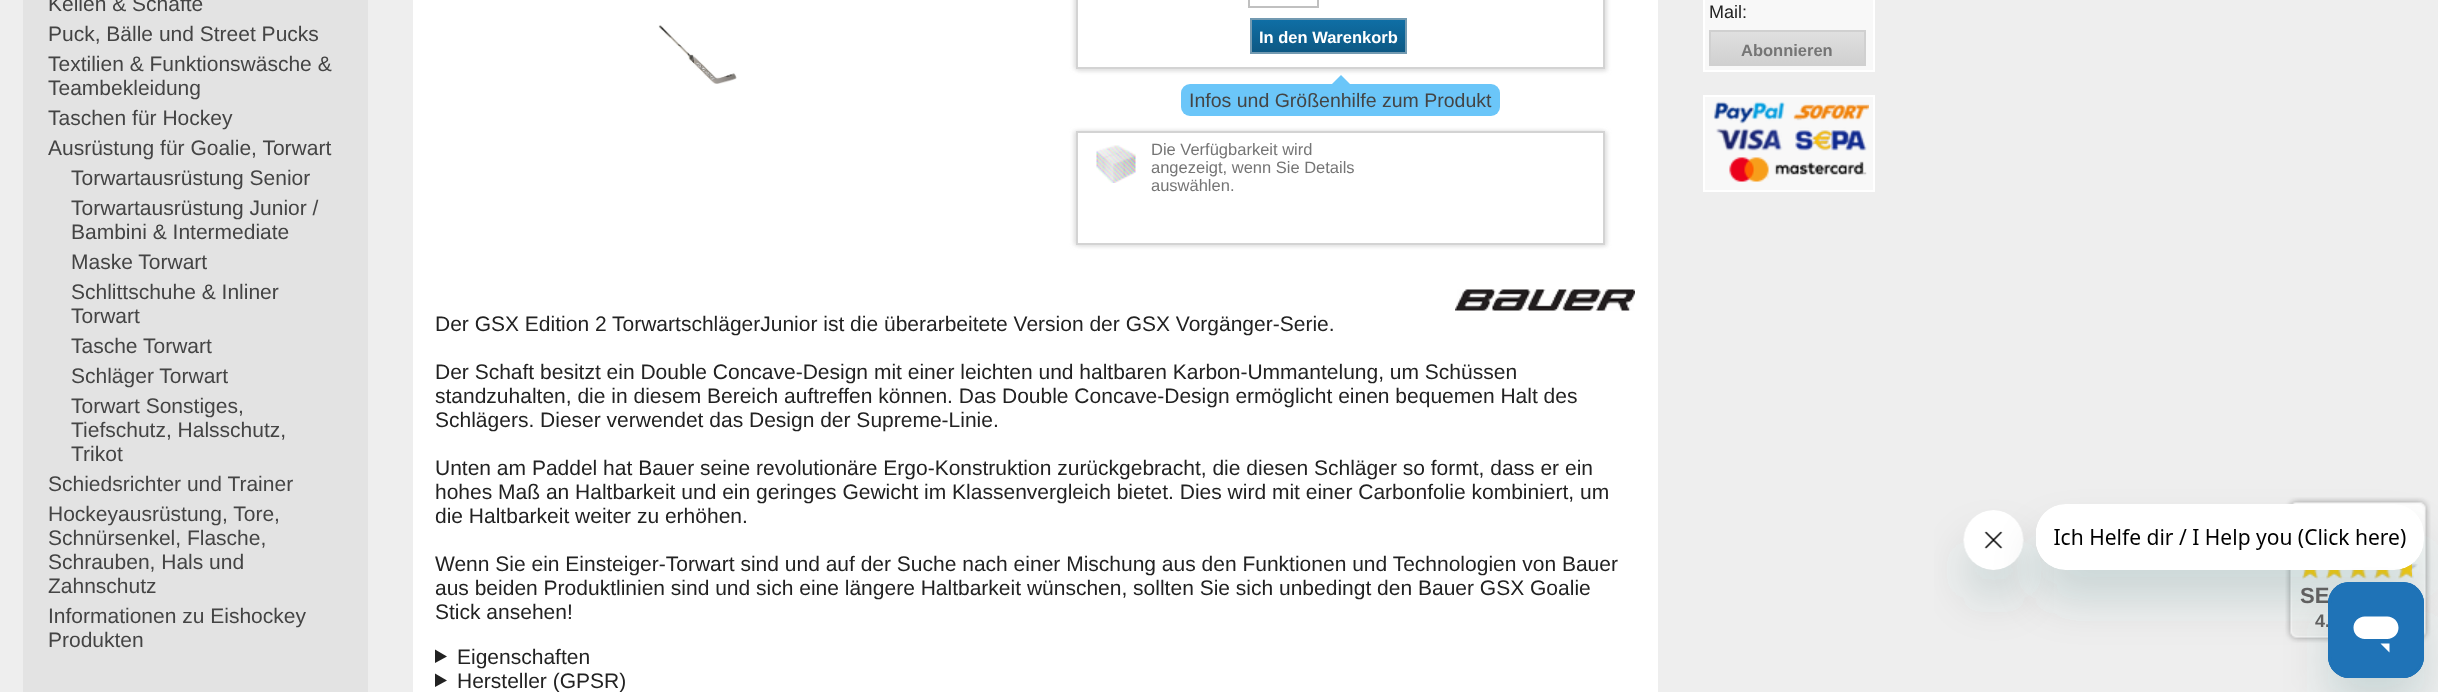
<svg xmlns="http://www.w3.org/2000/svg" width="2438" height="692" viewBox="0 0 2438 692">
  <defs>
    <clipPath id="clip1"><path d="M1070 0H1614V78H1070ZM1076-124H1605V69H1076Z" clip-rule="evenodd"/></clipPath>
    <filter id="blur1" x="-50%" y="-200%" width="200%" height="500%"><feGaussianBlur stdDeviation="2"/></filter>
    <clipPath id="clip2"><path d="M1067 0H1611V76H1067ZM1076-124H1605V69H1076Z" clip-rule="evenodd"/></clipPath>
    <linearGradient id="g1" gradientUnits="userSpaceOnUse" x1="1328" y1="19" x2="1328" y2="53"><stop offset="0" stop-color="#0f6fa6"/><stop offset="1" stop-color="#0d5883"/></linearGradient>
    <linearGradient id="g2" gradientUnits="userSpaceOnUse" x1="1787" y1="31" x2="1787" y2="65"><stop offset="0" stop-color="#e0e0e0"/><stop offset="1" stop-color="#d0d0d0"/></linearGradient>
    <filter id="blur2" x="-50%" y="-200%" width="200%" height="500%"><feGaussianBlur stdDeviation="22.5"/></filter>
  </defs>
  <rect width="100%" height="100%" fill="#eeeeee"/>
  <rect x="23" y="0" width="345" height="692" fill="#e3e3e3"/>
  <text x="48" y="11" font-family="Liberation Sans" font-size="21" fill="#444444">Kellen &amp; Schäfte</text>
  <text x="48" y="41" font-family="Liberation Sans" font-size="21" fill="#444444">Puck, Bälle und Street Pucks</text>
  <text x="48" y="71" font-family="Liberation Sans" font-size="21" fill="#444444">Textilien &amp; Funktionswäsche &amp;</text>
  <text x="48" y="95" font-family="Liberation Sans" font-size="21" fill="#444444">Teambekleidung</text>
  <text x="48" y="125" font-family="Liberation Sans" font-size="21" fill="#444444">Taschen für Hockey</text>
  <text x="48" y="155" font-family="Liberation Sans" font-size="21" fill="#444444">Ausrüstung für Goalie, Torwart</text>
  <text x="71" y="185" font-family="Liberation Sans" font-size="21" fill="#444444">Torwartausrüstung Senior</text>
  <text x="71" y="215" font-family="Liberation Sans" font-size="21" fill="#444444">Torwartausrüstung Junior /</text>
  <text x="71" y="239" font-family="Liberation Sans" font-size="21" fill="#444444">Bambini &amp; Intermediate</text>
  <text x="71" y="269" font-family="Liberation Sans" font-size="21" fill="#444444">Maske Torwart</text>
  <text x="71" y="299" font-family="Liberation Sans" font-size="21" fill="#444444">Schlittschuhe &amp; Inliner</text>
  <text x="71" y="323" font-family="Liberation Sans" font-size="21" fill="#444444">Torwart</text>
  <text x="71" y="353" font-family="Liberation Sans" font-size="21" fill="#444444">Tasche Torwart</text>
  <text x="71" y="383" font-family="Liberation Sans" font-size="21" fill="#444444">Schläger Torwart</text>
  <text x="71" y="413" font-family="Liberation Sans" font-size="21" fill="#444444">Torwart Sonstiges,</text>
  <text x="71" y="437" font-family="Liberation Sans" font-size="21" fill="#444444">Tiefschutz, Halsschutz,</text>
  <text x="71" y="461" font-family="Liberation Sans" font-size="21" fill="#444444">Trikot</text>
  <text x="48" y="491" font-family="Liberation Sans" font-size="21" fill="#444444">Schiedsrichter und Trainer</text>
  <text x="48" y="521" font-family="Liberation Sans" font-size="21" fill="#444444">Hockeyausrüstung, Tore,</text>
  <text x="48" y="545" font-family="Liberation Sans" font-size="21" fill="#444444">Schnürsenkel, Flasche,</text>
  <text x="48" y="569" font-family="Liberation Sans" font-size="21" fill="#444444">Schrauben, Hals und</text>
  <text x="48" y="593" font-family="Liberation Sans" font-size="21" fill="#444444">Zahnschutz</text>
  <text x="48" y="623" font-family="Liberation Sans" font-size="21" fill="#444444">Informationen zu Eishockey</text>
  <text x="48" y="647" font-family="Liberation Sans" font-size="21" fill="#444444">Produkten</text>
  <rect x="413" y="0" width="1245" height="692" fill="#ffffff"/>
  <image x="658" y="25" width="79" height="59" href="img1.png"/>
  <g clip-path="url(#clip1)">
    <rect x="1077" y="-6" width="530" height="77" fill="#e0e0e0" filter="url(#blur1)"/>
  </g>
  <g clip-path="url(#clip2)">
    <rect x="1074" y="-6" width="530" height="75" fill="#e0e0e0" filter="url(#blur1)"/>
  </g>
  <rect x="1077" y="-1" width="527" height="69" fill="none" stroke="#d3d3d3" stroke-width="2"/>
  <rect x="1249" y="-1" width="69" height="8" fill="none" stroke="#c0c0c0" stroke-width="2"/>
  <rect x="1252" y="20" width="153" height="32" fill="url(#g1)"/>
  <rect x="1251" y="19" width="155" height="34" fill="none" stroke="#739ab1" stroke-width="2"/>
  <text x="1259" y="43" font-family="Liberation Sans" font-size="16.5" font-weight="bold" fill="#ffffff">In den Warenkorb</text>
  <rect x="1181" y="84" width="319" height="32" rx="9" fill="#6bc6f9"/>
  <path d="M1350 84H1332L1341 75Z" fill="#6bc6f9"/>
  <text x="1189" y="107" font-family="Liberation Sans" font-size="19.5" fill="#444444">Infos und Größenhilfe zum Produkt</text>
  <rect x="1077" y="132" width="530" height="114" fill="#e0e0e0" filter="url(#blur1)"/>
  <rect x="1074" y="131" width="530" height="114" fill="#e0e0e0" filter="url(#blur1)"/>
  <rect x="1077" y="132" width="527" height="112" fill="#ffffff" stroke="#d3d3d3" stroke-width="2"/>
  <image x="1096" y="145" width="40" height="38" href="img2.png"/>
  <text x="1151" y="155" font-family="Liberation Sans" font-size="16.5" fill="#757575">Die Verfügbarkeit wird</text>
  <text x="1151" y="173" font-family="Liberation Sans" font-size="16.5" fill="#757575">angezeigt, wenn Sie Details</text>
  <text x="1151" y="191" font-family="Liberation Sans" font-size="16.5" fill="#757575">auswählen.</text>
  <image x="1455" y="289" width="180" height="22" href="img3.png"/>
  <text x="435" y="331" font-family="Liberation Sans" font-size="21" fill="#222222">Der GSX Edition 2 TorwartschlägerJunior ist die überarbeitete Version der GSX Vorgänger-Serie.</text>
  <text x="435" y="379" font-family="Liberation Sans" font-size="21" fill="#222222">Der Schaft besitzt ein Double Concave-Design mit einer leichten und haltbaren Karbon-Ummantelung, um Schüssen</text>
  <text x="435" y="403" font-family="Liberation Sans" font-size="21" fill="#222222">standzuhalten, die in diesem Bereich auftreffen können. Das Double Concave-Design ermöglicht einen bequemen Halt des</text>
  <text x="435" y="427" font-family="Liberation Sans" font-size="21" fill="#222222">Schlägers. Dieser verwendet das Design der Supreme-Linie.</text>
  <text x="435" y="475" font-family="Liberation Sans" font-size="21" fill="#222222">Unten am Paddel hat Bauer seine revolutionäre Ergo-Konstruktion zurückgebracht, die diesen Schläger so formt, dass er ein</text>
  <text x="435" y="499" font-family="Liberation Sans" font-size="21" fill="#222222">hohes Maß an Haltbarkeit und ein geringes Gewicht im Klassenvergleich bietet. Dies wird mit einer Carbonfolie kombiniert, um</text>
  <text x="435" y="523" font-family="Liberation Sans" font-size="21" fill="#222222">die Haltbarkeit weiter zu erhöhen.</text>
  <text x="435" y="571" font-family="Liberation Sans" font-size="21" fill="#222222">Wenn Sie ein Einsteiger-Torwart sind und auf der Suche nach einer Mischung aus den Funktionen und Technologien von Bauer</text>
  <text x="435" y="595" font-family="Liberation Sans" font-size="21" fill="#222222">aus beiden Produktlinien sind und sich eine längere Haltbarkeit wünschen, sollten Sie sich unbedingt den Bauer GSX Goalie</text>
  <text x="435" y="619" font-family="Liberation Sans" font-size="21" fill="#222222">Stick ansehen!</text>
  <path d="M435 649.5L447 656.5L435 663Z" fill="#222222"/>
  <text x="457" y="664" font-family="Liberation Sans" font-size="21" fill="#222222">Eigenschaften</text>
  <path d="M435 673.5L447 680.5L435 687Z" fill="#222222"/>
  <text x="457" y="688" font-family="Liberation Sans" font-size="21" fill="#222222">Hersteller (GPSR)</text>
  <rect x="1704" y="-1" width="170" height="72" fill="#f8f8f8" stroke="#ffffff" stroke-width="2"/>
  <text x="1709" y="18" font-family="Liberation Sans" font-size="18" fill="#222222">Mail:</text>
  <rect x="1711" y="32" width="153" height="32" fill="url(#g2)"/>
  <rect x="1710" y="31" width="155" height="34" fill="none" stroke="#d0d0d0" stroke-width="2"/>
  <text x="1741" y="56" font-family="Liberation Sans" font-size="16.5" font-weight="bold" fill="#757575">Abonnieren</text>
  <rect x="1704" y="96" width="170" height="95" fill="#f8f8f8" stroke="#ffffff" stroke-width="2"/>
  <image x="1713" y="101" width="156" height="81" href="img4.png"/>
  <rect x="1964" y="540" width="60" height="60" rx="30" fill="#17494d" fill-opacity="0.15" filter="url(#blur2)"/>
  <image x="1963" y="510" width="61" height="60" href="img6.png"/>
  <image x="2285" y="497" width="146" height="146" href="img8.png"/>
  <image x="2302" y="563" width="110" height="16" href="img9.png"/>
  <rect x="2036" y="534" width="388" height="66" rx="30" fill="#17494d" fill-opacity="0.15" filter="url(#blur2)"/>
  <image x="2036" y="504" width="388" height="66" href="img5.png"/>
  <rect x="2328" y="612" width="96" height="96" rx="21" fill="#17494d" fill-opacity="0.15" filter="url(#blur2)"/>
  <text x="2300" y="603" font-family="Liberation Sans" font-size="22" font-weight="bold" fill="#606060">SE</text>
  <text x="2315" y="627" font-family="Liberation Sans" font-size="18" font-weight="bold" fill="#606060">4.</text>
  <image x="2328" y="582" width="96" height="96" href="img7.png"/>
</svg>
